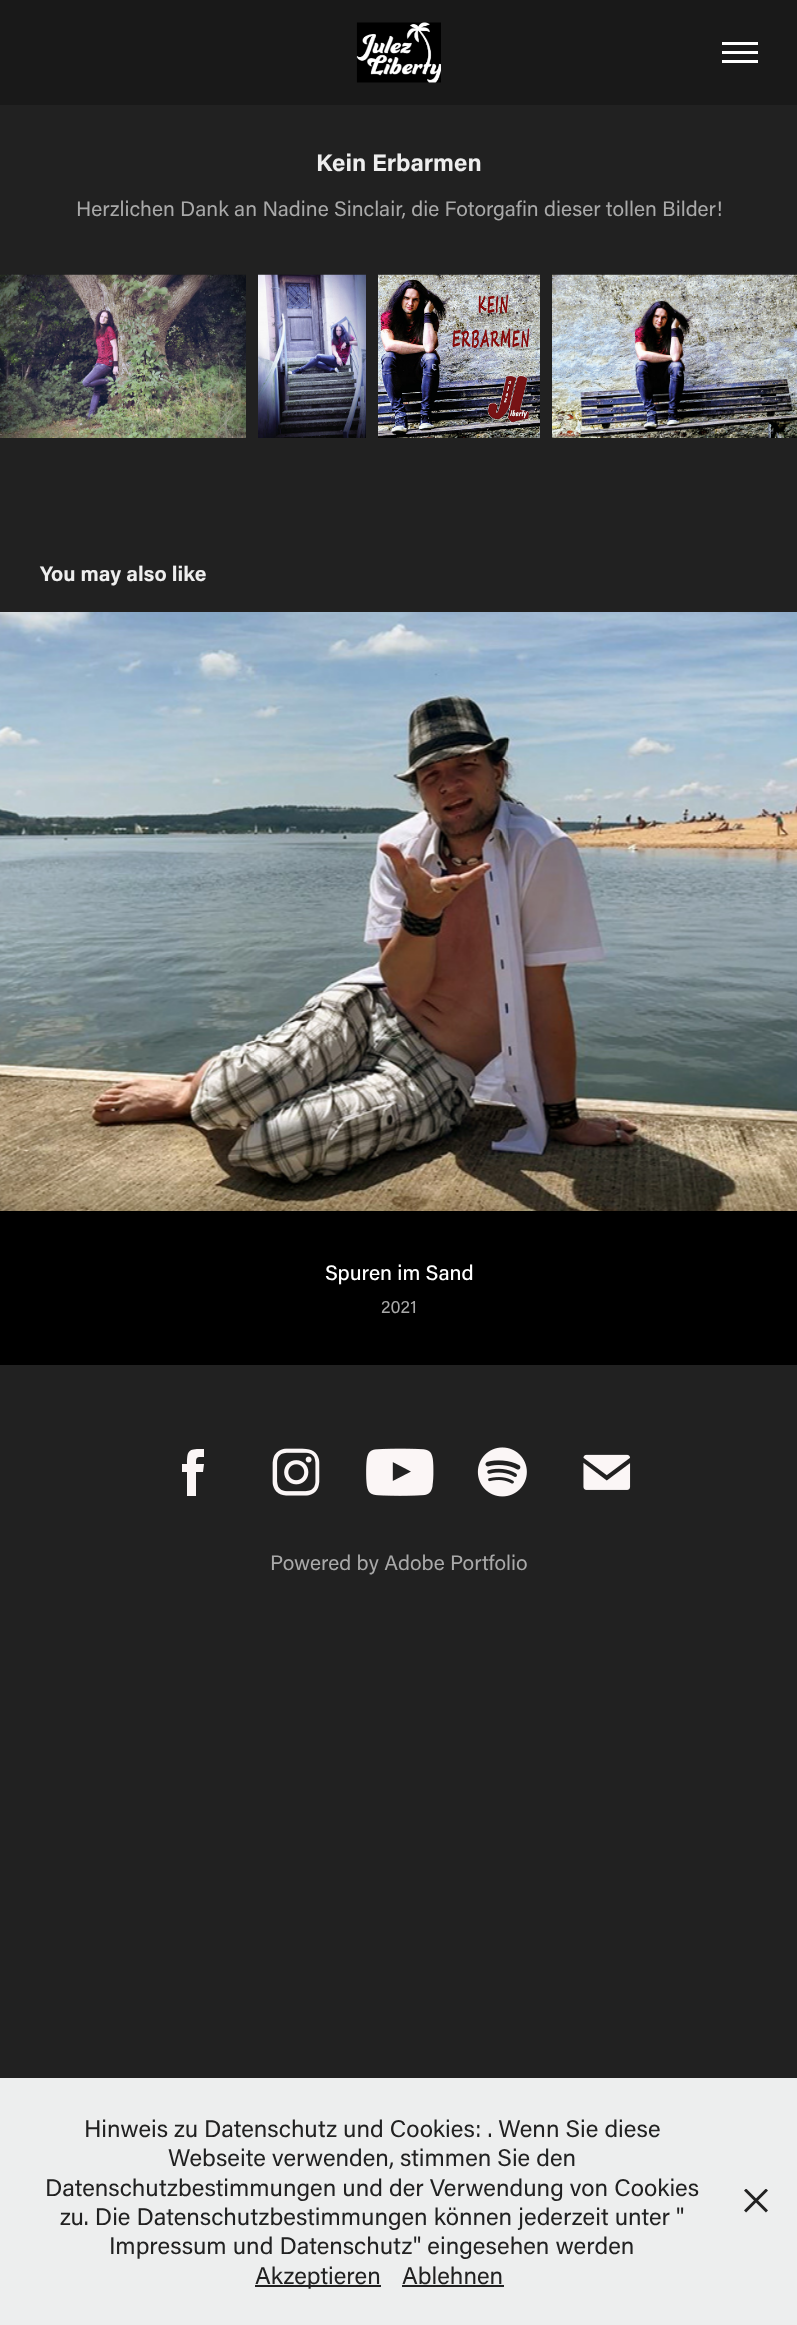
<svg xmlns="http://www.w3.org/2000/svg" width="797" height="2325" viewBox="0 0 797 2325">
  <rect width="100%" height="100%" fill="#212121"/>
  <rect x="0" y="0" width="797" height="105" fill="#191919"/>
  <image x="356" y="22" width="85" height="61" href="img1.png"/>
  <rect x="722" y="42" width="36" height="3" fill="#ffffff"/>
  <rect x="722" y="51" width="36" height="3" fill="#ffffff"/>
  <rect x="722" y="60" width="36" height="3" fill="#ffffff"/>
  <text x="316" y="171" font-family="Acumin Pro" font-size="24" font-weight="bold" fill="#eeeeee">Kein Erbarmen</text>
  <text x="76" y="216" font-family="Acumin Pro" font-size="21" fill="#a9a9a9">Herzlichen Dank an Nadine Sinclair, die Fotorgafin dieser tollen Bilder!</text>
  <image x="0" y="274" width="246" height="164" href="img2.png"/>
  <image x="258" y="274" width="108" height="164" href="img3.png"/>
  <image x="378" y="274" width="162" height="164" href="img4.png"/>
  <image x="552" y="274" width="245" height="164" href="img5.png"/>
  <text x="40" y="581" font-family="Acumin Pro" font-size="21" font-weight="bold" fill="#eeeeee">You may also like</text>
  <image x="0" y="612" width="797" height="599" href="img6.png"/>
  <rect x="0" y="1211" width="797" height="154" fill="#000000"/>
  <text x="325" y="1280" font-family="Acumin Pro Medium" font-size="21" font-weight="500" fill="#ffffff">Spuren im Sand</text>
  <text x="381" y="1313" font-family="Acumin Pro" font-size="18" fill="#a9a9a9">2021</text>
  <path d="M196 1496H187V1472H182V1464H187C187 1449 189 1449 204 1449V1457C196 1457 196 1457 196 1464H204L203 1472H196Z" fill="#fbf6f6"/>
  <image x="272" y="1448" width="48" height="48" href="img7.png"/>
  <image x="366" y="1448" width="68" height="48" href="img8.png"/>
  <image x="477" y="1447" width="50" height="50" href="img9.png"/>
  <image x="583" y="1454" width="48" height="36" href="img10.png"/>
  <text x="270" y="1570" font-family="Acumin Pro" font-size="21" fill="#a9a9a9">Powered by Adobe Portfolio</text>
  <rect x="0" y="2078" width="797" height="247" fill="#edeeee"/>
  <text x="84" y="2137" font-family="Acumin Pro" font-size="24" fill="#212121">Hinweis zu Datenschutz und Cookies: . Wenn Sie diese</text>
  <text x="168" y="2166" font-family="Acumin Pro" font-size="24" fill="#212121">Webseite verwenden, stimmen Sie den</text>
  <text x="45" y="2196" font-family="Acumin Pro" font-size="24" fill="#212121">Datenschutzbestimmungen und der Verwendung von Cookies</text>
  <text x="60" y="2225" font-family="Acumin Pro" font-size="24" fill="#212121">zu. Die Datenschutzbestimmungen können jederzeit unter "</text>
  <text x="109" y="2254" font-family="Acumin Pro" font-size="24" fill="#212121">Impressum und Datenschutz" eingesehen werden</text>
  <rect x="255" y="2285" width="126" height="2" fill="#212121"/>
  <text x="255" y="2284" font-family="Acumin Pro" font-size="24" fill="#212121">Akzeptieren</text>
  <text x="402" y="2284" font-family="Acumin Pro" font-size="24" fill="#212121">Ablehnen</text>
  <rect x="402" y="2285" width="102" height="2" fill="#212121"/>
  <image x="744" y="2189" width="24" height="24" href="img11.png"/>
</svg>
